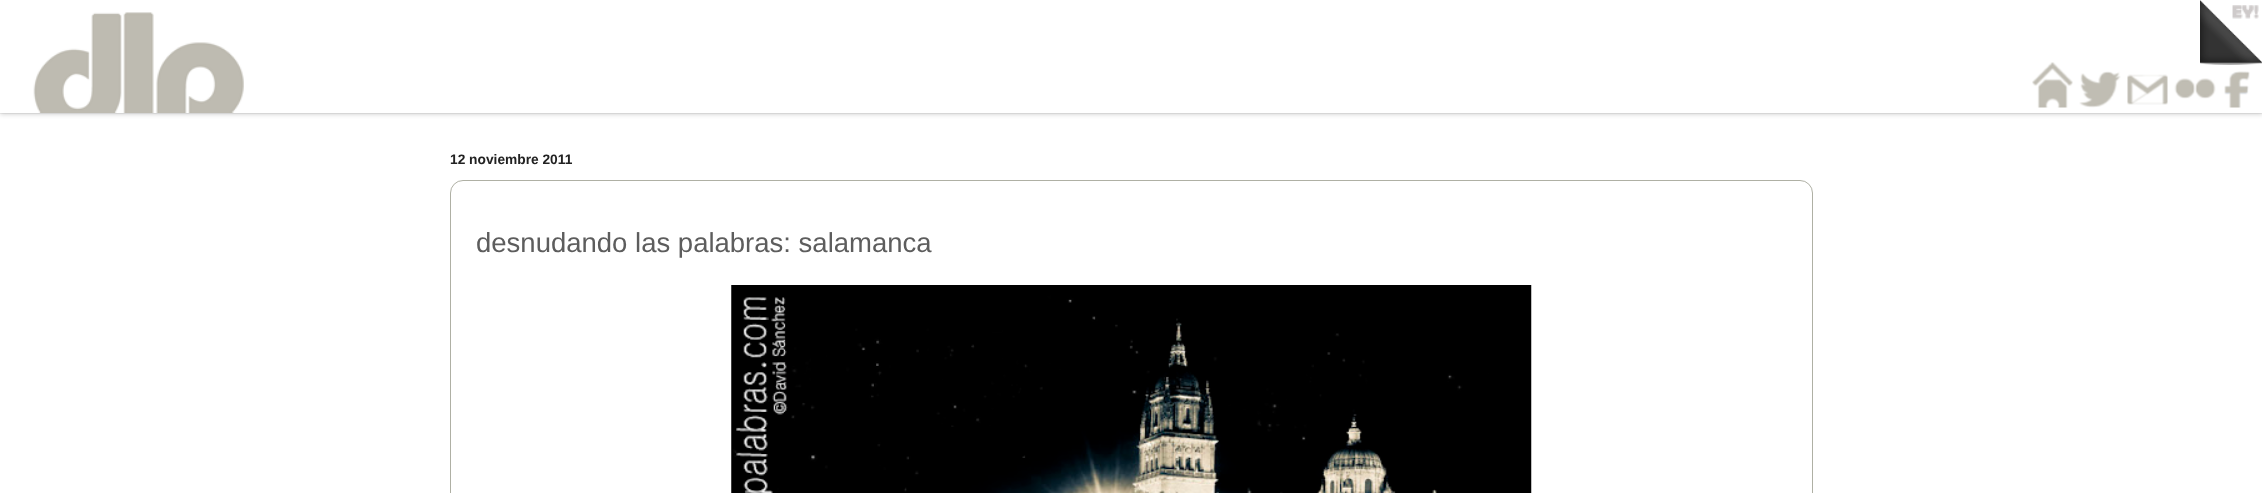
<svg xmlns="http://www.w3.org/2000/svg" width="2262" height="493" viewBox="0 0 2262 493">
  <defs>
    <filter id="blur1" x="-50%" y="-200%" width="200%" height="500%"><feGaussianBlur stdDeviation="2.5"/></filter>
  </defs>
  <rect width="100%" height="100%" fill="#ffffff"/>
  <rect x="0" y="113" width="2262" height="1" fill="#f2f2f2"/>
  <rect x="0" y="1" width="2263" height="113" fill="#000000" fill-opacity="0.2" filter="url(#blur1)"/>
  <rect x="0" y="0" width="2262" height="113" fill="#ffffff"/>
  <image x="33" y="12" width="211" height="101" href="img1.png"/>
  <image x="2032" y="62" width="41" height="46" href="img2.png"/>
  <image x="2079" y="71" width="42" height="37" href="img3.png"/>
  <image x="2127" y="74" width="41" height="31" href="img4.png"/>
  <image x="2174" y="78" width="42" height="21" href="img5.png"/>
  <image x="2224" y="71" width="26" height="37" href="img6.png"/>
  <image x="2232" y="5" width="27" height="14" href="img8.png"/>
  <image x="2200" y="0" width="62" height="65" href="img7.png"/>
  <text x="450" y="164" font-family="Liberation Sans" font-size="13.75" font-weight="bold" fill="#222222">12 noviembre 2011</text>
  <rect x="450.5" y="180.5" width="1362" height="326" rx="12.5" fill="none" stroke="#afb0a4"/>
  <text x="476" y="252" font-family="Liberation Sans" font-size="27.5" fill="#5d5d5d">desnudando las palabras: salamanca</text>
  <image x="731" y="285" width="801" height="208" href="img9.png"/>
</svg>
